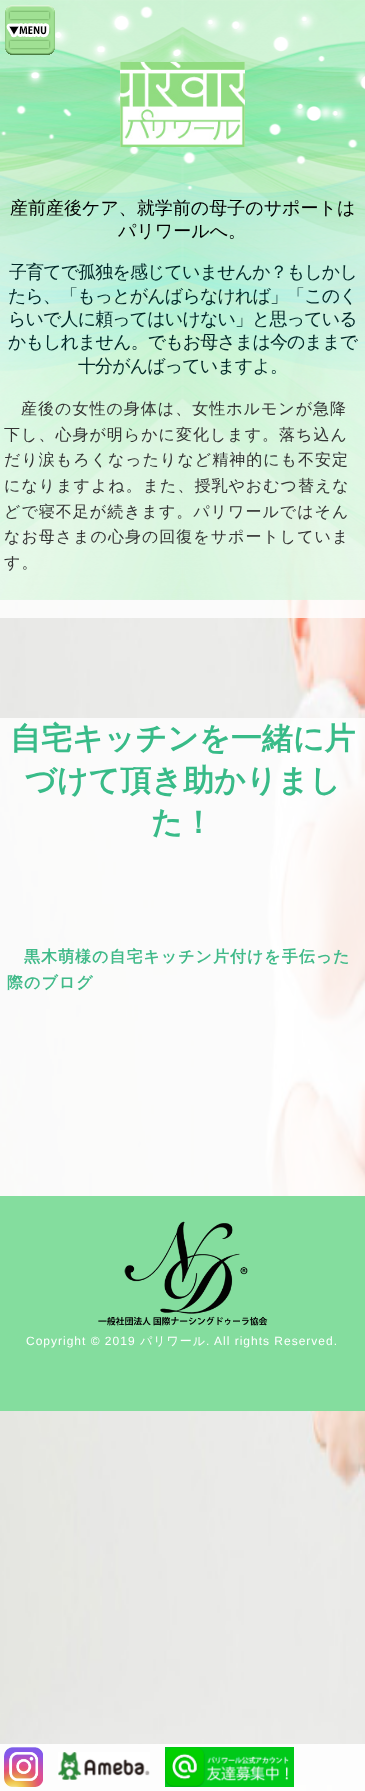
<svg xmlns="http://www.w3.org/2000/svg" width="365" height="1791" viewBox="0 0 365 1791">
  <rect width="100%" height="100%" fill="#ffffff"/>
  <image x="0" y="0" width="365" height="1791" href="img1.png"/>
  <rect x="0" y="0" width="365" height="618" fill="#ffffff" fill-opacity="0.8"/>
  <image x="0" y="0" width="365" height="600" href="img2.png"/>
  <image x="5" y="5" width="50" height="50" href="img3.png"/>
  <image x="120" y="62" width="125" height="85" href="img4.png"/>
  <text x="10" y="214" font-family="WenQuanYi Zen Hei" font-size="18" font-weight="500" fill="#000000">産前産後ケア、就学前の母子のサポートは</text>
  <text x="118" y="237" font-family="WenQuanYi Zen Hei" font-size="18" font-weight="500" fill="#000000">パリワールへ。</text>
  <text x="9" y="278" font-family="WenQuanYi Zen Hei" font-size="18" font-weight="500" letter-spacing="-0.9" fill="#002828">子育てで孤独を感じていませんか？もしかし</text>
  <text x="8" y="302" font-family="WenQuanYi Zen Hei" font-size="18" font-weight="500" letter-spacing="-0.9" fill="#002828">たら、「もっとがんばらなければ」「このく</text>
  <text x="8" y="325" font-family="WenQuanYi Zen Hei" font-size="18" font-weight="500" letter-spacing="-0.9" fill="#002828">らいで人に頼ってはいけない」と思っている</text>
  <text x="8" y="348" font-family="WenQuanYi Zen Hei" font-size="18" font-weight="500" letter-spacing="-0.9" fill="#002828">かもしれません。でもお母さまは今のままで</text>
  <text x="78" y="372" font-family="WenQuanYi Zen Hei" font-size="18" font-weight="500" letter-spacing="-0.9" fill="#002828">十分がんばっていますよ。</text>
  <text x="21" y="414" font-family="WenQuanYi Zen Hei" font-size="16" font-weight="500" letter-spacing="1" fill="#333333">産後の女性の身体は、女性ホルモンが急降</text>
  <text x="4" y="440" font-family="WenQuanYi Zen Hei" font-size="16" font-weight="500" letter-spacing="1" fill="#333333">下し、心身が明らかに変化します。落ち込ん</text>
  <text x="4" y="465" font-family="WenQuanYi Zen Hei" font-size="16" font-weight="500" letter-spacing="1" fill="#333333">だり涙もろくなったりなど精神的にも不安定</text>
  <text x="4" y="491" font-family="WenQuanYi Zen Hei" font-size="16" font-weight="500" letter-spacing="1" fill="#333333">になりますよね。また、授乳やおむつ替えな</text>
  <text x="4" y="517" font-family="WenQuanYi Zen Hei" font-size="16" font-weight="500" letter-spacing="1" fill="#333333">どで寝不足が続きます。パリワールではそん</text>
  <text x="4" y="542" font-family="WenQuanYi Zen Hei" font-size="16" font-weight="500" letter-spacing="1" fill="#333333">なお母さまの心身の回復をサポートしていま</text>
  <text x="4" y="568" font-family="WenQuanYi Zen Hei" font-size="16" font-weight="500" letter-spacing="1" fill="#333333">す。</text>
  <rect x="0" y="718" width="365" height="478" fill="#ffffff" fill-opacity="0.8"/>
  <text x="10" y="749" font-family="WenQuanYi Zen Hei" font-size="31" font-weight="bold" fill="#38bb88">自宅キッチンを一緒に片</text>
  <text x="25" y="791" font-family="WenQuanYi Zen Hei" font-size="31" font-weight="bold" fill="#38bb88">づけて頂き助かりまし</text>
  <text x="151" y="833" font-family="WenQuanYi Zen Hei" font-size="31" font-weight="bold" fill="#38bb88">た！</text>
  <text x="24" y="962" font-family="WenQuanYi Zen Hei" font-size="16" font-weight="bold" letter-spacing="1" fill="#40ba89">黒木萌様の自宅キッチン片付けを手伝った</text>
  <text x="7" y="988" font-family="WenQuanYi Zen Hei" font-size="16" font-weight="bold" letter-spacing="1" fill="#40ba89">際のブログ</text>
  <rect x="0" y="1196" width="365" height="215" fill="#84dd9e"/>
  <image x="98" y="1221" width="170" height="105" href="img5.png"/>
  <rect x="0" y="1744" width="365" height="47" fill="#ffffff" fill-opacity="0.9"/>
  <image x="4" y="1747" width="39" height="40" href="img6.png"/>
  <image x="58" y="1752" width="92" height="28" href="img7.png"/>
  <image x="165" y="1747" width="129" height="40" href="img8.png"/>
  <text x="26" y="1345" font-family="Liberation Sans" font-size="12" letter-spacing="1" fill="#ffffff">Copyright © 2019</text>
  <text x="140" y="1345" font-family="WenQuanYi Zen Hei" font-size="12" font-weight="500" letter-spacing="1" fill="#ffffff">パリワール</text>
  <text x="206" y="1345" font-family="Liberation Sans" font-size="12" letter-spacing="1" fill="#ffffff">. All rights Reserved.</text>
</svg>
